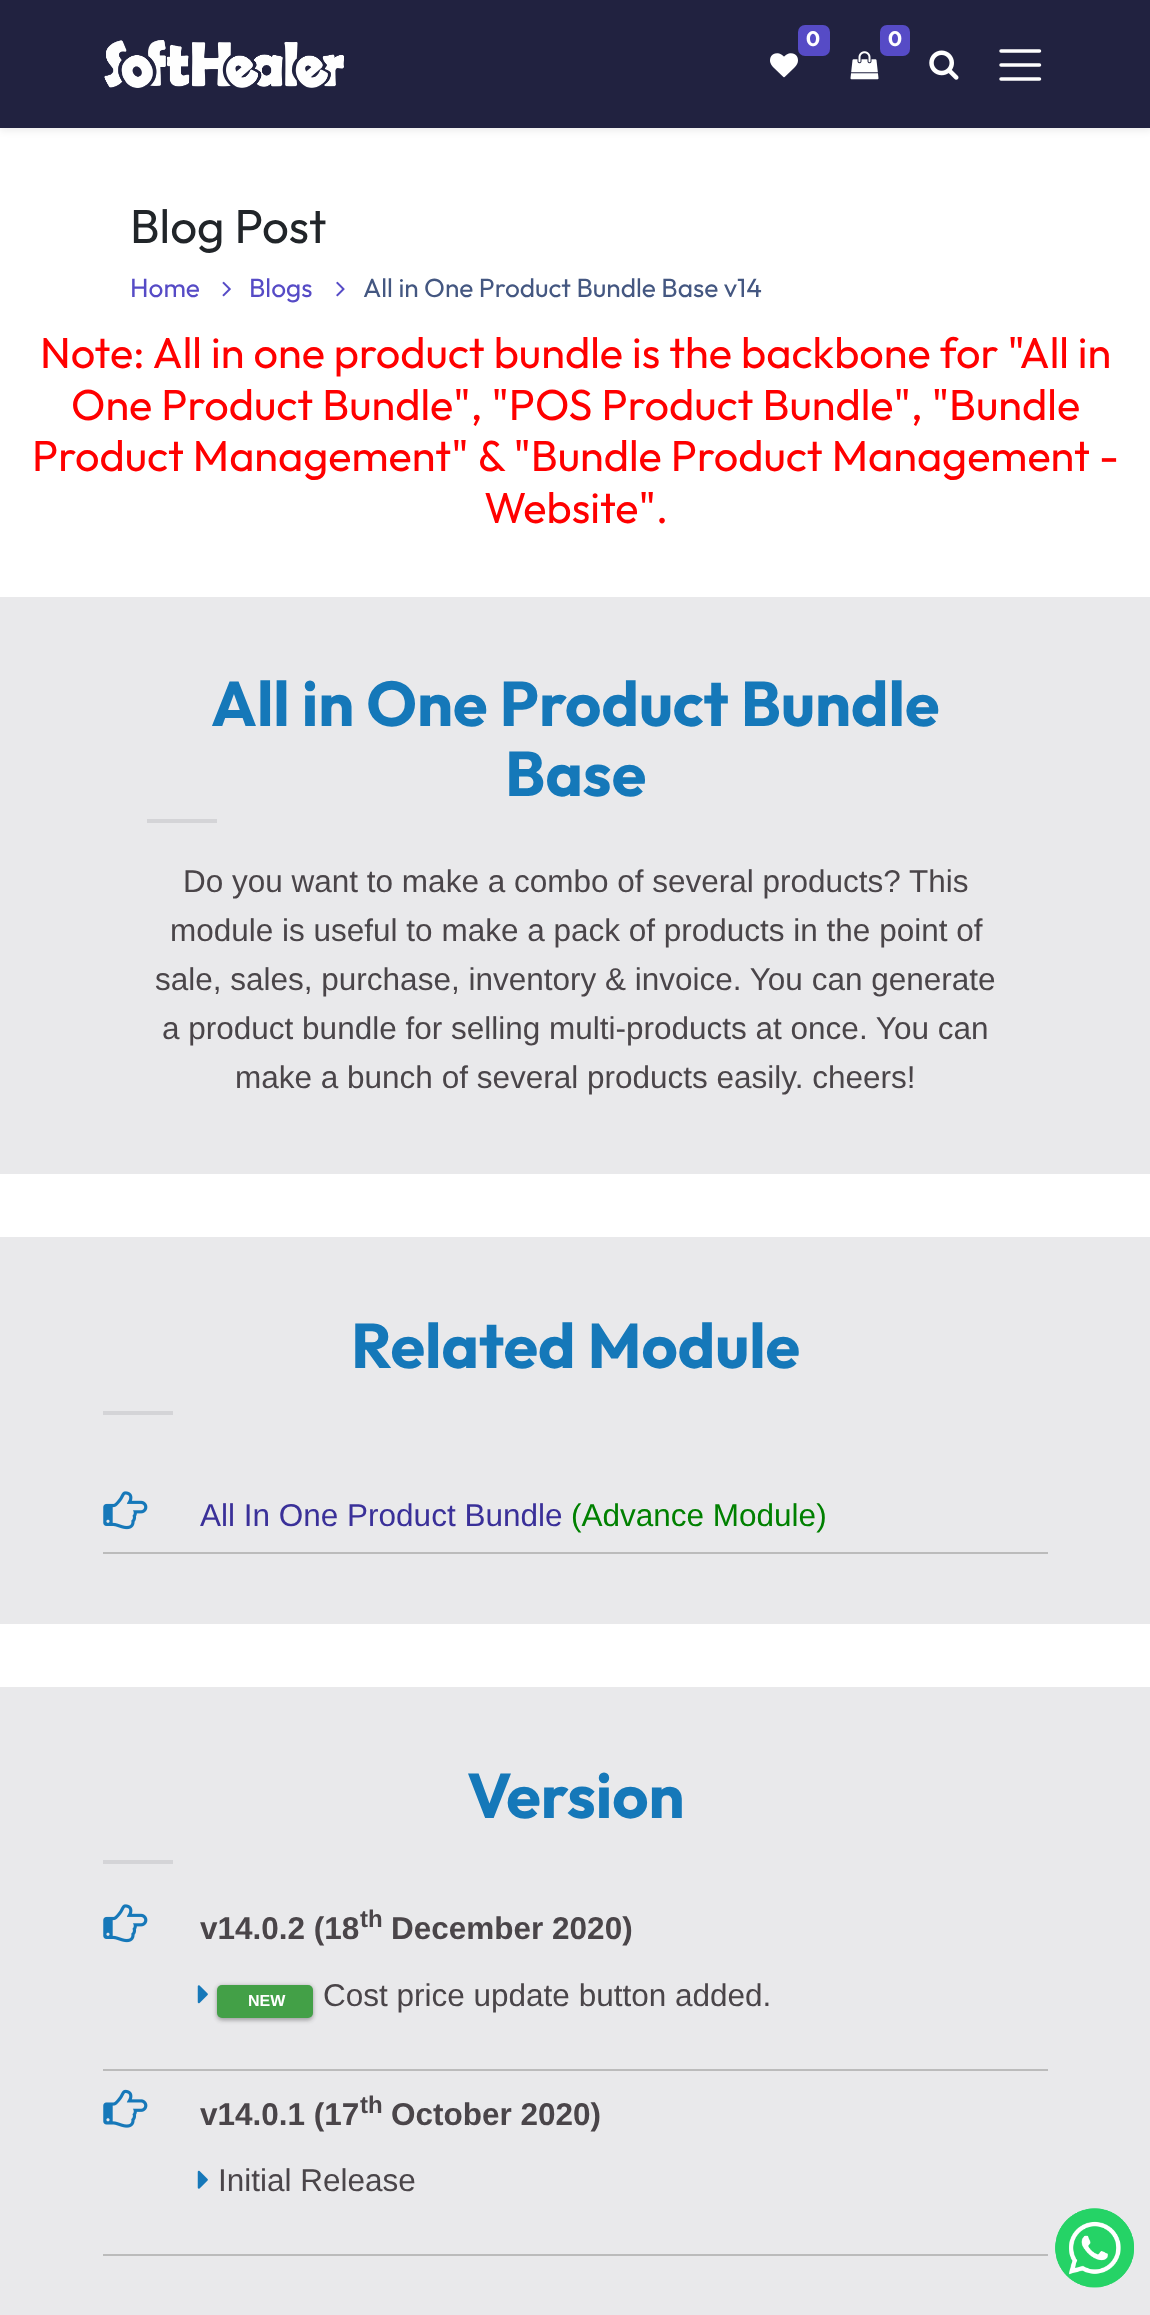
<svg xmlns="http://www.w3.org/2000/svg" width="1150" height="2315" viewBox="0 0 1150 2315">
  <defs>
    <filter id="blur1" x="-50%" y="-200%" width="200%" height="500%"><feGaussianBlur stdDeviation="3.5"/></filter>
    <filter id="blur2" x="-50%" y="-200%" width="200%" height="500%"><feGaussianBlur stdDeviation="2"/></filter>
    <filter id="blur3" x="-50%" y="-200%" width="200%" height="500%"><feGaussianBlur stdDeviation="2.5"/></filter>
  </defs>
  <rect width="100%" height="100%" fill="#ffffff"/>
  <rect x="0" y="4" width="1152" height="127" fill="#000000" fill-opacity="0.07" filter="url(#blur1)"/>
  <rect x="0" y="0" width="1150" height="128" fill="#212240"/>
  <image x="104" y="40" width="240" height="48" href="img1.png"/>
  <rect x="798" y="25" width="32" height="31" rx="7" fill="#564bc6"/>
  <text x="806" y="46" font-family="Outfit" font-size="21" font-weight="bold" fill="#ffffff">0</text>
  <image x="770" y="53" width="28" height="25" href="img2.png"/>
  <rect x="880" y="25" width="30" height="31" rx="7" fill="#564bc6"/>
  <text x="888" y="46" font-family="Outfit" font-size="21" font-weight="bold" fill="#ffffff">0</text>
  <image x="850" y="51" width="29" height="29" href="img3.png"/>
  <image x="929" y="50" width="30" height="30" href="img4.png"/>
  <path d="M1001 51H1039.5M1001 65H1039.5M1001 79H1039.5" fill="none" stroke="#ffffff" stroke-width="3.5" stroke-linecap="round"/>
  <text x="130" y="243" font-family="Outfit" font-size="47.5" fill="#212529">Blog Post</text>
  <text x="130" y="297" font-family="Outfit" font-size="26.25" fill="#564bc6">Home</text>
  <image x="222" y="281" width="9" height="16" href="img5.png"/>
  <text x="249" y="297" font-family="Outfit" font-size="26.25" fill="#564bc6">Blogs</text>
  <image x="336" y="281" width="9" height="16" href="img6.png"/>
  <text x="363" y="297" font-family="Outfit" font-size="26.25" fill="#445781">All in One Product Bundle Base v14</text>
  <text x="40" y="368" font-family="Outfit" font-size="43.3" fill="#ff0000">Note: All in one product bundle is the backbone for "All in</text>
  <text x="71" y="420" font-family="Outfit" font-size="43.3" fill="#ff0000">One Product Bundle", "POS Product Bundle", "Bundle</text>
  <text x="32" y="471" font-family="Outfit" font-size="43.3" fill="#ff0000">Product Management" &amp; "Bundle Product Management -</text>
  <text x="484" y="523" font-family="Outfit" font-size="43.3" fill="#ff0000">Website".</text>
  <rect x="0" y="597" width="1150" height="577" fill="#e9e9eb"/>
  <text x="211" y="726" font-family="Outfit" font-size="63" font-weight="bold" fill="#1578b9">All in One Product Bundle</text>
  <text x="505" y="796" font-family="Outfit" font-size="63" font-weight="bold" fill="#1578b9">Base</text>
  <rect x="147" y="819" width="70" height="4" fill="#d4d4d7"/>
  <text x="183" y="892" font-family="Liberation Sans" font-size="31.5" fill="#4a4549">Do you want to make a combo of several products? This</text>
  <text x="170" y="941" font-family="Liberation Sans" font-size="31.5" fill="#4a4549">module is useful to make a pack of products in the point of</text>
  <text x="155" y="990" font-family="Liberation Sans" font-size="31.5" fill="#4a4549">sale, sales, purchase, inventory &amp; invoice. You can generate</text>
  <text x="162" y="1039" font-family="Liberation Sans" font-size="31.5" fill="#4a4549">a product bundle for selling multi-products at once. You can</text>
  <text x="235" y="1088" font-family="Liberation Sans" font-size="31.5" fill="#4a4549">make a bunch of several products easily. cheers!</text>
  <rect x="0" y="1237" width="1150" height="387" fill="#e9e9eb"/>
  <text x="351" y="1368" font-family="Outfit" font-size="63" font-weight="bold" fill="#1578b9">Related Module</text>
  <rect x="103" y="1411" width="70" height="4" fill="#d4d4d7"/>
  <rect x="103" y="1552" width="945" height="2" fill="#bbbbbb"/>
  <image x="103" y="1491" width="45" height="39" href="img7.png"/>
  <text x="200" y="1526" font-family="Liberation Sans" font-size="31.5" fill="#3a3099">All In One Product Bundle</text>
  <text x="571" y="1526" font-family="Liberation Sans" font-size="31.5" fill="#008000">(Advance Module)</text>
  <rect x="0" y="1687" width="1150" height="628" fill="#e9e9eb"/>
  <text x="467" y="1818" font-family="Outfit" font-size="63" font-weight="bold" fill="#1578b9">Version</text>
  <rect x="103" y="1860" width="70" height="4" fill="#d4d4d7"/>
  <image x="103" y="1904" width="45" height="39" href="img7.png"/>
  <text x="200" y="1939" font-family="Liberation Sans" font-size="31.5" font-weight="bold" fill="#4a4549">v14.0.2 (18</text>
  <text x="360" y="1927" font-family="Liberation Sans" font-size="24" font-weight="bold" fill="#4a4549">th</text>
  <text x="391" y="1939" font-family="Liberation Sans" font-size="31.5" font-weight="bold" fill="#4a4549">December 2020)</text>
  <rect x="103" y="2069" width="945" height="2" fill="#bbbbbb"/>
  <image x="197" y="1985" width="11" height="19" href="img8.png"/>
  <rect x="217" y="1986" width="96" height="34" rx="5" fill="#000000" fill-opacity="0.24" filter="url(#blur2)"/>
  <rect x="217" y="1986" width="96" height="34" rx="5" fill="#000000" fill-opacity="0.12" filter="url(#blur3)"/>
  <rect x="217" y="1985" width="96" height="33" rx="5" fill="#43a047"/>
  <text x="248" y="2006" font-family="Liberation Sans" font-size="16" font-weight="bold" fill="#ffffff">NEW</text>
  <text x="323" y="2006" font-family="Liberation Sans" font-size="31.5" fill="#4a4549">Cost price update button added.</text>
  <image x="103" y="2089" width="45" height="39" href="img9.png"/>
  <text x="200" y="2125" font-family="Liberation Sans" font-size="31.5" font-weight="bold" fill="#4a4549">v14.0.1 (17</text>
  <text x="360" y="2113" font-family="Liberation Sans" font-size="24" font-weight="bold" fill="#4a4549">th</text>
  <text x="391" y="2125" font-family="Liberation Sans" font-size="31.5" font-weight="bold" fill="#4a4549">October 2020)</text>
  <rect x="103" y="2254" width="945" height="2" fill="#bbbbbb"/>
  <image x="197" y="2170" width="11" height="19" href="img10.png"/>
  <text x="218" y="2191" font-family="Liberation Sans" font-size="31.5" fill="#4a4549">Initial Release</text>
  <image x="1055" y="2208" width="79" height="80" href="img11.png"/>
  <image x="1055" y="2208" width="79" height="80" href="img12.png"/>
</svg>
